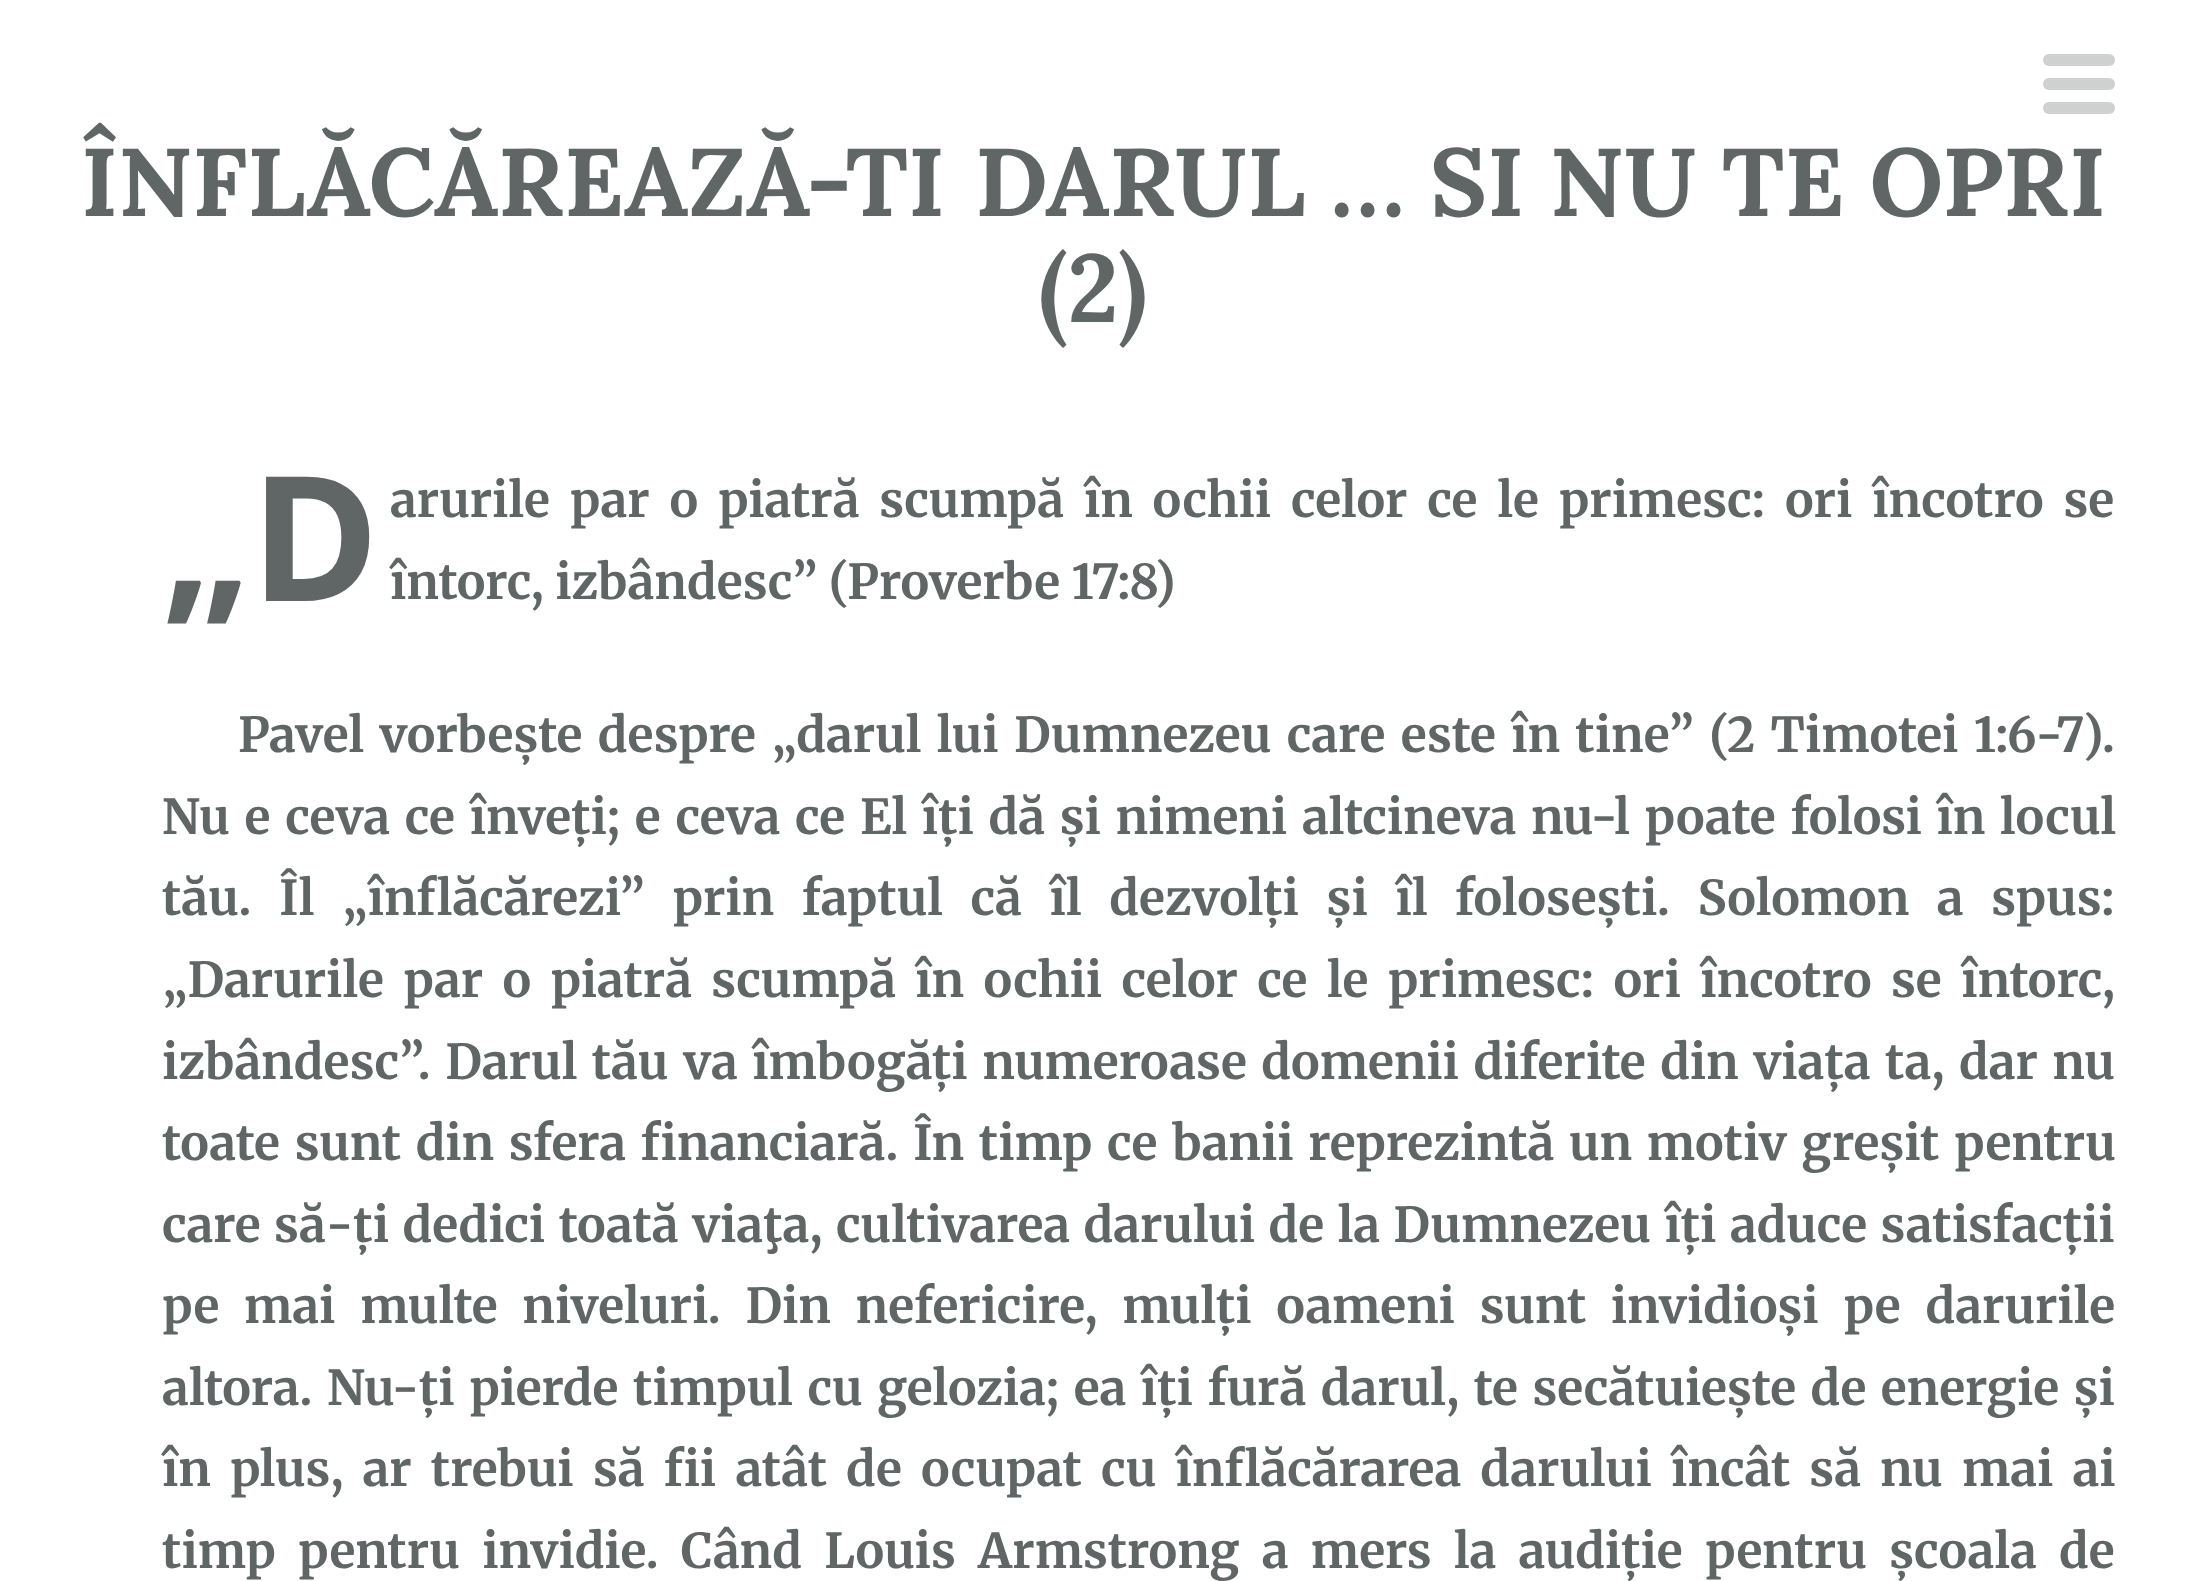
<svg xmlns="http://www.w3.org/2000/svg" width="2185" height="1581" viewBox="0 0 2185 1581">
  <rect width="100%" height="100%" fill="#ffffff"/>
  <rect x="2043" y="78" width="72" height="12" rx="6" fill="#cfd1d1"/>
  <rect x="2043" y="54" width="72" height="12" rx="6" fill="#cfd1d1"/>
  <rect x="2043" y="102" width="72" height="12" rx="6" fill="#cfd1d1"/>
  <text x="81" y="216" font-family="Lora" font-size="96" font-weight="bold" fill="#606666">ÎNFLĂCĂREAZĂ-TI</text>
  <text x="975" y="216" font-family="Lora" font-size="96" font-weight="bold" fill="#606666">DARUL … SI NU TE OPRI</text>
  <text x="1039" y="322" font-family="Lora" font-size="96" font-weight="bold" fill="#606666">(2)</text>
  <text x="162" y="601" font-family="Noto Sans" font-size="174" font-weight="bold" fill="#606666">„D</text>
  <text x="390" y="517" word-spacing="8.5" font-family="Merriweather" font-size="48" font-weight="bold" fill="#606666">arurile par o piatră scumpă în ochii celor ce le primesc: ori încotro se</text>
  <text x="390" y="599" font-family="Merriweather" font-size="48" font-weight="bold" fill="#606666">întorc, izbândesc” (Proverbe 17:8)</text>
  <text x="238" y="752" word-spacing="3.9" font-family="Merriweather" font-size="48" font-weight="bold" fill="#606666">Pavel vorbește despre „darul lui Dumnezeu care este în tine” (2 Timotei 1:6-7).</text>
  <text x="162" y="834" word-spacing="3.25" font-family="Merriweather" font-size="48" font-weight="bold" fill="#606666">Nu e ceva ce înveți; e ceva ce El îți dă și nimeni altcineva nu-l poate folosi în locul</text>
  <text x="162" y="915" word-spacing="16.25" font-family="Merriweather" font-size="48" font-weight="bold" fill="#606666">tău. Îl „înflăcărezi” prin faptul că îl dezvolți și îl folosești. Solomon a spus:</text>
  <text x="162" y="997" word-spacing="8" font-family="Merriweather" font-size="48" font-weight="bold" fill="#606666">„Darurile par o piatră scumpă în ochii celor ce le primesc: ori încotro se întorc,</text>
  <text x="162" y="1079" word-spacing="3.1" font-family="Merriweather" font-size="48" font-weight="bold" fill="#606666">izbândesc”. Darul tău va îmbogăți numeroase domenii diferite din viața ta, dar nu</text>
  <text x="162" y="1160" word-spacing="3.25" font-family="Merriweather" font-size="48" font-weight="bold" fill="#606666">toate sunt din sfera financiară. În timp ce banii reprezintă un motiv greșit pentru</text>
  <text x="162" y="1242" word-spacing="2" font-family="Merriweather" font-size="48" font-weight="bold" fill="#606666">care să-ți dedici toată viaţa, cultivarea darului de la Dumnezeu îți aduce satisfacții</text>
  <text x="162" y="1323" word-spacing="13.25" font-family="Merriweather" font-size="48" font-weight="bold" fill="#606666">pe mai multe niveluri. Din nefericire, mulți oameni sunt invidioși pe darurile</text>
  <text x="162" y="1405" word-spacing="3.1" font-family="Merriweather" font-size="48" font-weight="bold" fill="#606666">altora. Nu-ți pierde timpul cu gelozia; ea îți fură darul, te secătuiește de energie și</text>
  <text x="162" y="1486" word-spacing="7.75" font-family="Merriweather" font-size="48" font-weight="bold" fill="#606666">în plus, ar trebui să fii atât de ocupat cu înflăcărarea darului încât să nu mai ai</text>
  <text x="162" y="1568" word-spacing="10.9" font-family="Merriweather" font-size="48" font-weight="bold" fill="#606666">timp pentru invidie. Când Louis Armstrong a mers la audiție pentru școala de</text>
</svg>
